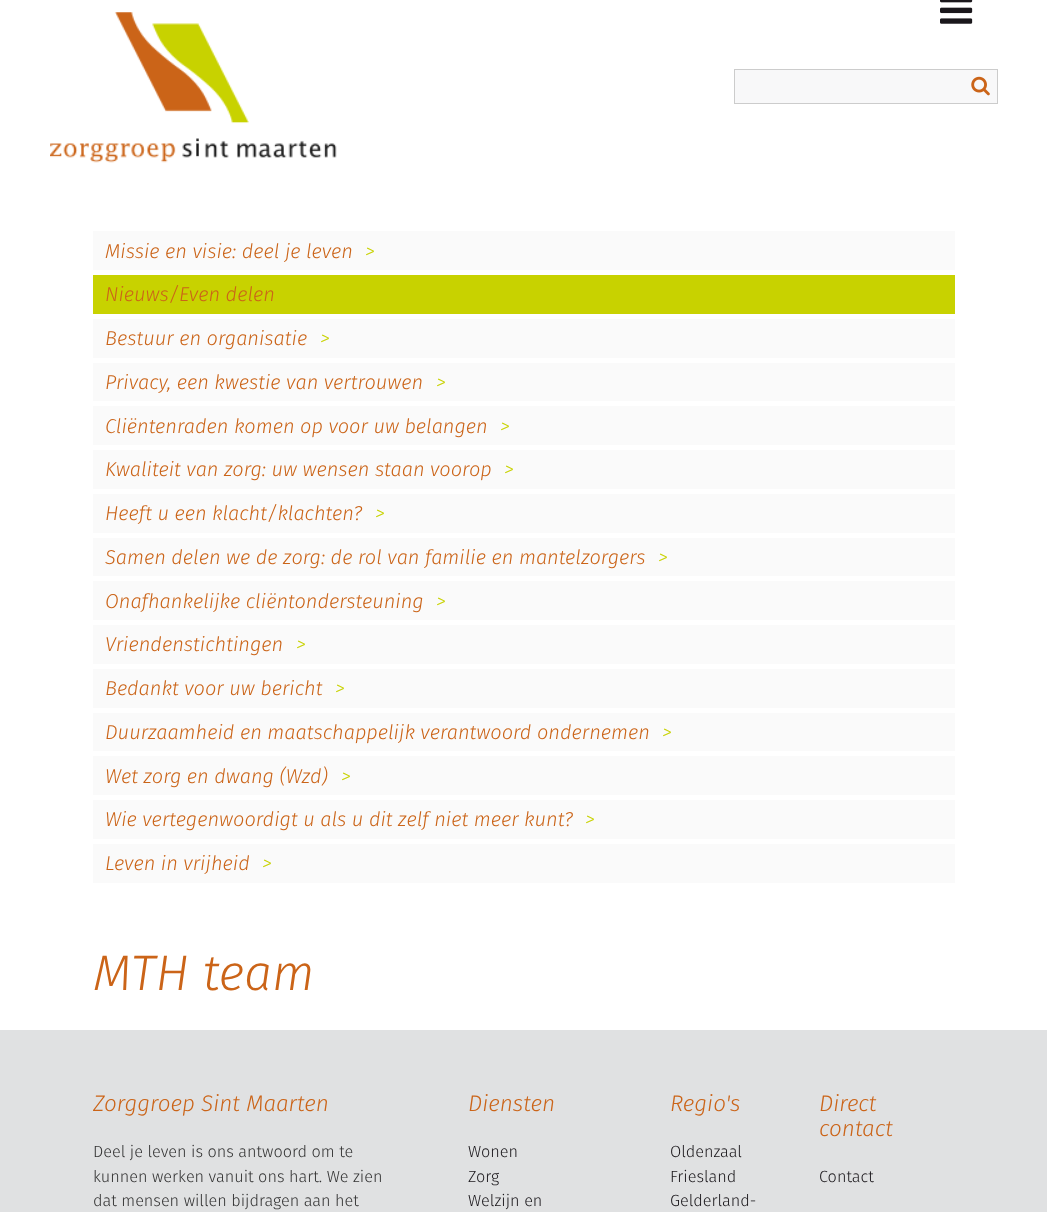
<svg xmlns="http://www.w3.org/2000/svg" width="1047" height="1212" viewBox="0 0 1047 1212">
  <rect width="100%" height="100%" fill="#ffffff"/>
  <image x="50" y="12" width="287" height="151" href="img1.png"/>
  <image x="940" y="0" width="33" height="24" href="img2.png"/>
  <rect x="734.5" y="69.5" width="263" height="34" fill="#f8f8f9" stroke="#cccccc"/>
  <image x="971" y="76" width="19" height="20" href="img3.png"/>
  <rect x="93" y="231" width="862" height="39" fill="#fafafa"/>
  <text x="105" y="258" font-family="Fira Sans" font-size="20" font-weight="300" font-style="italic" fill="#cb6418">Missie en visie: deel je leven</text>
  <text x="365" y="258" font-family="Fira Sans" font-size="20" font-weight="300" font-style="italic" fill="#c8d200">&gt;</text>
  <rect x="93" y="275" width="862" height="39" fill="#c8d200"/>
  <text x="105" y="301" font-family="Fira Sans" font-size="20" font-weight="300" font-style="italic" fill="#cb6418">Nieuws/Even delen</text>
  <rect x="93" y="319" width="862" height="39" fill="#fafafa"/>
  <text x="105" y="345" font-family="Fira Sans" font-size="20" font-weight="300" font-style="italic" fill="#cb6418">Bestuur en organisatie</text>
  <text x="320" y="345" font-family="Fira Sans" font-size="20" font-weight="300" font-style="italic" fill="#c8d200">&gt;</text>
  <rect x="93" y="363" width="862" height="38" fill="#fafafa"/>
  <text x="105" y="389" font-family="Fira Sans" font-size="20" font-weight="300" font-style="italic" fill="#cb6418">Privacy, een kwestie van vertrouwen</text>
  <text x="436" y="389" font-family="Fira Sans" font-size="20" font-weight="300" font-style="italic" fill="#c8d200">&gt;</text>
  <rect x="93" y="406" width="862" height="39" fill="#fafafa"/>
  <text x="105" y="433" font-family="Fira Sans" font-size="20" font-weight="300" font-style="italic" fill="#cb6418">Cliëntenraden komen op voor uw belangen</text>
  <text x="500" y="433" font-family="Fira Sans" font-size="20" font-weight="300" font-style="italic" fill="#c8d200">&gt;</text>
  <rect x="93" y="450" width="862" height="39" fill="#fafafa"/>
  <text x="105" y="476" font-family="Fira Sans" font-size="20" font-weight="300" font-style="italic" fill="#cb6418">Kwaliteit van zorg: uw wensen staan voorop</text>
  <text x="504" y="476" font-family="Fira Sans" font-size="20" font-weight="300" font-style="italic" fill="#c8d200">&gt;</text>
  <rect x="93" y="494" width="862" height="39" fill="#fafafa"/>
  <text x="105" y="520" font-family="Fira Sans" font-size="20" font-weight="300" font-style="italic" fill="#cb6418">Heeft u een klacht/klachten?</text>
  <text x="375" y="520" font-family="Fira Sans" font-size="20" font-weight="300" font-style="italic" fill="#c8d200">&gt;</text>
  <rect x="93" y="538" width="862" height="38" fill="#fafafa"/>
  <text x="105" y="564" font-family="Fira Sans" font-size="20" font-weight="300" font-style="italic" fill="#cb6418">Samen delen we de zorg: de rol van familie en mantelzorgers</text>
  <text x="658" y="564" font-family="Fira Sans" font-size="20" font-weight="300" font-style="italic" fill="#c8d200">&gt;</text>
  <rect x="93" y="581" width="862" height="39" fill="#fafafa"/>
  <text x="105" y="608" font-family="Fira Sans" font-size="20" font-weight="300" font-style="italic" fill="#cb6418">Onafhankelijke cliëntondersteuning</text>
  <text x="436" y="608" font-family="Fira Sans" font-size="20" font-weight="300" font-style="italic" fill="#c8d200">&gt;</text>
  <rect x="93" y="625" width="862" height="39" fill="#fafafa"/>
  <text x="105" y="651" font-family="Fira Sans" font-size="20" font-weight="300" font-style="italic" fill="#cb6418">Vriendenstichtingen</text>
  <text x="296" y="651" font-family="Fira Sans" font-size="20" font-weight="300" font-style="italic" fill="#c8d200">&gt;</text>
  <rect x="93" y="669" width="862" height="39" fill="#fafafa"/>
  <text x="105" y="695" font-family="Fira Sans" font-size="20" font-weight="300" font-style="italic" fill="#cb6418">Bedankt voor uw bericht</text>
  <text x="335" y="695" font-family="Fira Sans" font-size="20" font-weight="300" font-style="italic" fill="#c8d200">&gt;</text>
  <rect x="93" y="713" width="862" height="38" fill="#fafafa"/>
  <text x="105" y="739" font-family="Fira Sans" font-size="20" font-weight="300" font-style="italic" fill="#cb6418">Duurzaamheid en maatschappelijk verantwoord ondernemen</text>
  <text x="662" y="739" font-family="Fira Sans" font-size="20" font-weight="300" font-style="italic" fill="#c8d200">&gt;</text>
  <rect x="93" y="756" width="862" height="39" fill="#fafafa"/>
  <text x="105" y="783" font-family="Fira Sans" font-size="20" font-weight="300" font-style="italic" fill="#cb6418">Wet zorg en dwang (Wzd)</text>
  <text x="341" y="783" font-family="Fira Sans" font-size="20" font-weight="300" font-style="italic" fill="#c8d200">&gt;</text>
  <rect x="93" y="800" width="862" height="39" fill="#fafafa"/>
  <text x="105" y="826" font-family="Fira Sans" font-size="20" font-weight="300" font-style="italic" fill="#cb6418">Wie vertegenwoordigt u als u dit zelf niet meer kunt?</text>
  <text x="585" y="826" font-family="Fira Sans" font-size="20" font-weight="300" font-style="italic" fill="#c8d200">&gt;</text>
  <rect x="93" y="844" width="862" height="39" fill="#fafafa"/>
  <text x="105" y="870" font-family="Fira Sans" font-size="20" font-weight="300" font-style="italic" fill="#cb6418">Leven in vrijheid</text>
  <text x="262" y="870" font-family="Fira Sans" font-size="20" font-weight="300" font-style="italic" fill="#c8d200">&gt;</text>
  <text x="93" y="990" font-family="Fira Sans" font-size="50" font-weight="300" font-style="italic" fill="#cb6418">MTH team</text>
  <rect x="0" y="1030" width="1047" height="182" fill="#e0e1e2"/>
  <text x="93" y="1111" font-family="Fira Sans" font-size="22.5" font-weight="300" font-style="italic" fill="#cb6418">Zorggroep Sint Maarten</text>
  <text x="93" y="1157" font-family="Fira Sans" font-size="16.25" font-weight="300" fill="#333333">Deel je leven is ons antwoord om te</text>
  <text x="93" y="1182" font-family="Fira Sans" font-size="16.25" font-weight="300" fill="#333333">kunnen werken vanuit ons hart. We zien</text>
  <text x="93" y="1206" font-family="Fira Sans" font-size="16.25" font-weight="300" fill="#333333">dat mensen willen bijdragen aan het</text>
  <text x="468" y="1111" font-family="Fira Sans" font-size="22.5" font-weight="300" font-style="italic" fill="#cb6418">Diensten</text>
  <text x="468" y="1157" font-family="Fira Sans" font-size="16.25" font-weight="300" fill="#1a171b">Wonen</text>
  <text x="468" y="1182" font-family="Fira Sans" font-size="16.25" font-weight="300" fill="#1a171b">Zorg</text>
  <text x="468" y="1206" font-family="Fira Sans" font-size="16.25" font-weight="300" fill="#1a171b">Welzijn en</text>
  <text x="670" y="1111" font-family="Fira Sans" font-size="22.5" font-weight="300" font-style="italic" fill="#cb6418">Regio's</text>
  <text x="670" y="1157" font-family="Fira Sans" font-size="16.25" font-weight="300" fill="#1a171b">Oldenzaal</text>
  <text x="670" y="1182" font-family="Fira Sans" font-size="16.25" font-weight="300" fill="#1a171b">Friesland</text>
  <text x="670" y="1206" font-family="Fira Sans" font-size="16.25" font-weight="300" fill="#1a171b">Gelderland-</text>
  <text x="819" y="1111" font-family="Fira Sans" font-size="22.5" font-weight="300" font-style="italic" fill="#cb6418">Direct</text>
  <text x="819" y="1136" font-family="Fira Sans" font-size="22.5" font-weight="300" font-style="italic" fill="#cb6418">contact</text>
  <text x="819" y="1182" font-family="Fira Sans" font-size="16.25" font-weight="300" fill="#1a171b">Contact</text>
</svg>
